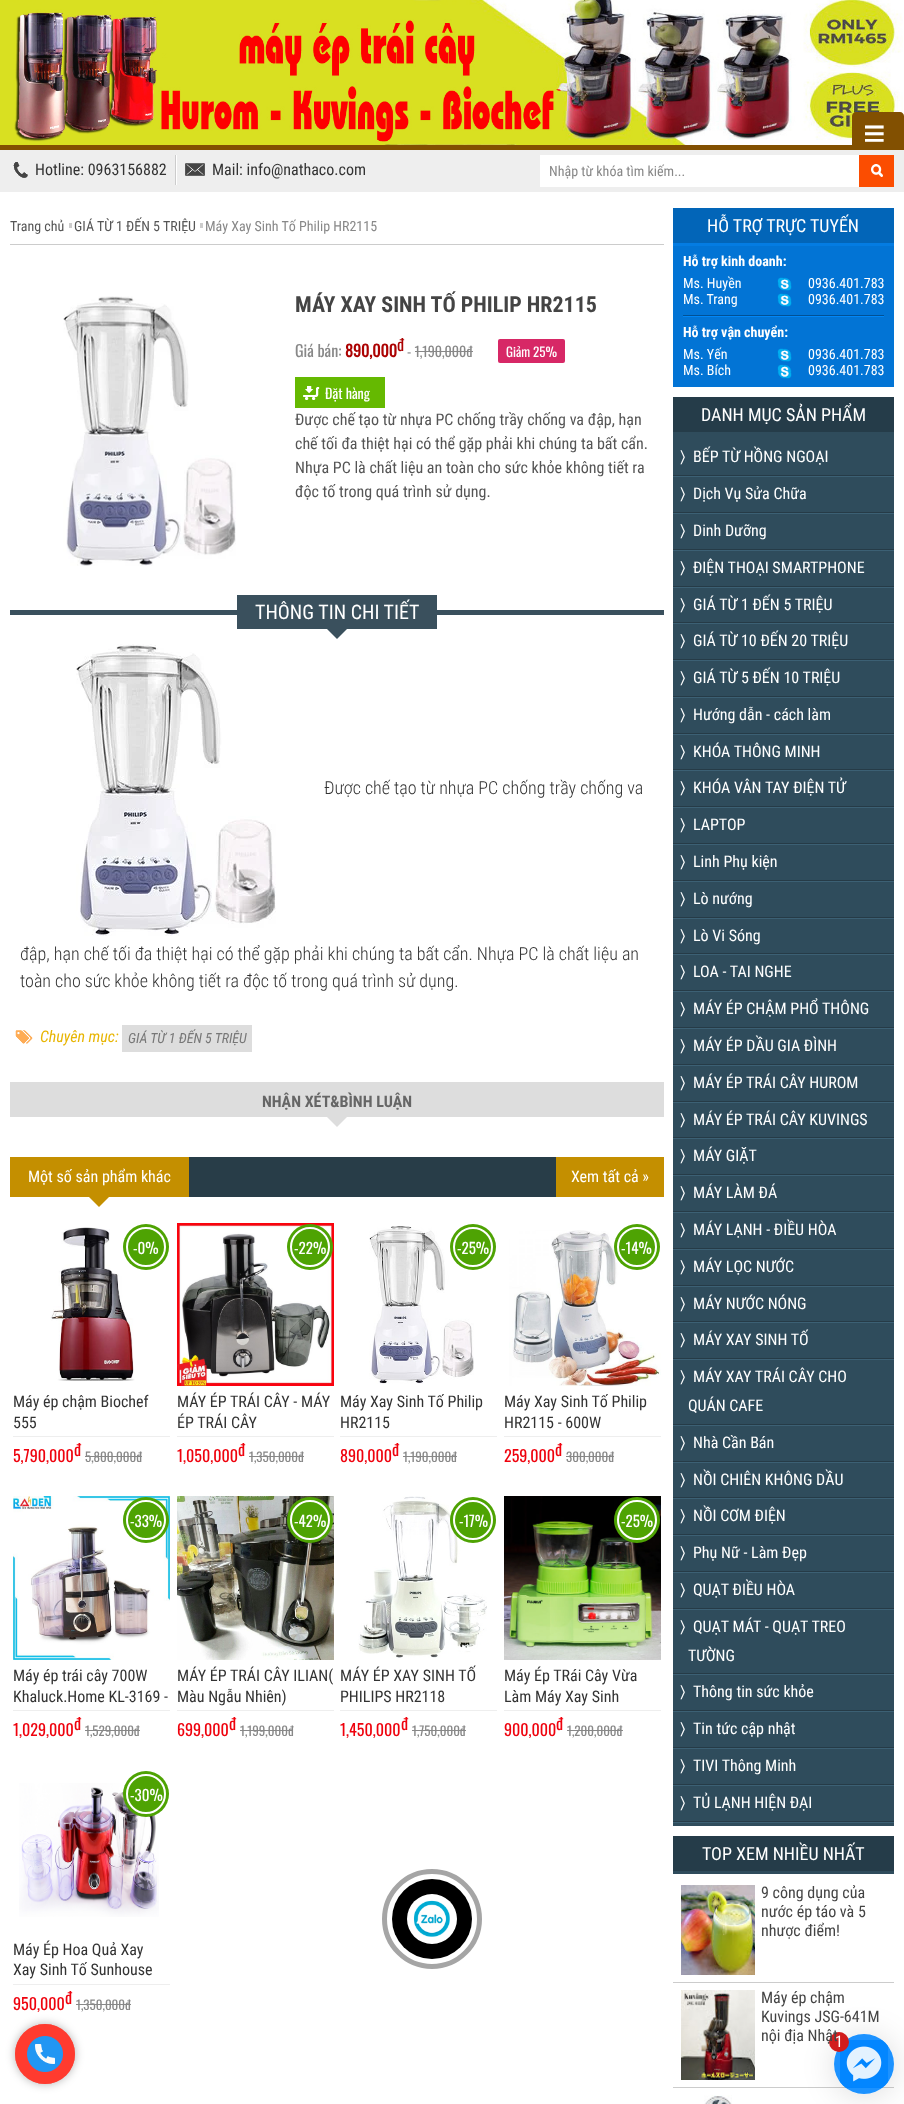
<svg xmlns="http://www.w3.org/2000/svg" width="904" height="2104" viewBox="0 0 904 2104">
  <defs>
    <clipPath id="clip1"><path d="M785 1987H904V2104H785ZM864 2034C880.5 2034 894 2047.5 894 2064C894 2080.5 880.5 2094 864 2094C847.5 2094 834 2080.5 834 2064C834 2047.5 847.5 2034 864 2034Z" clip-rule="evenodd"/></clipPath>
    <filter id="blur1" x="-50%" y="-200%" width="200%" height="500%"><feGaussianBlur stdDeviation="16"/></filter>
    <filter id="blur2" x="-50%" y="-200%" width="200%" height="500%"><feGaussianBlur stdDeviation="5"/></filter>
  </defs>
  <rect width="100%" height="100%" fill="#ffffff"/>
  <image x="0" y="0" width="903" height="145" href="img1.png"/>
  <rect x="0" y="145" width="904" height="5" fill="#825001"/>
  <path d="M856 112H900C902 112 904 114 904 116V145H852V116C852 114 854 112 856 112Z" fill="#825001"/>
  <text x="863" y="147" font-family="Liberation Serif" font-size="40" font-weight="bold" fill="#ffffff">≡</text>
  <rect x="0" y="150" width="904" height="42" fill="#eeeeee"/>
  <image x="13" y="162" width="15" height="16" href="img2.png"/>
  <rect x="175" y="155" width="1" height="30" fill="#cccccc"/>
  <text x="35" y="175" font-family="Roboto Condensed" font-size="16" fill="#333333">Hotline: 0963156882</text>
  <image x="185" y="163" width="20" height="13" href="img3.png"/>
  <rect x="176" y="155" width="1" height="30" fill="#ffffff"/>
  <text x="212" y="175" font-family="Roboto Condensed" font-size="16" fill="#333333">Mail: info@nathaco.com</text>
  <rect x="540" y="155" width="319" height="32" fill="#ffffff"/>
  <text x="549" y="176" font-family="Roboto Condensed" font-size="14" fill="#888888">Nhập từ khóa tìm kiếm...</text>
  <rect x="859" y="155" width="35" height="32" fill="#fb4d01"/>
  <image x="871" y="164" width="12" height="13" href="img4.png"/>
  <rect x="673" y="208" width="221" height="35" fill="#0265b8"/>
  <rect x="673" y="243" width="221" height="3" fill="#047ce2"/>
  <text x="707" y="232" font-family="Roboto Condensed" font-size="18" fill="#ffffff">HỖ TRỢ TRỰC TUYẾN</text>
  <rect x="673" y="246" width="221" height="141" fill="#0274d5"/>
  <rect x="683" y="315" width="201" height="1" fill="#015195"/>
  <text x="683" y="266" font-family="Roboto Condensed" font-size="14" font-weight="bold" fill="#ffffff">Hỗ trợ kinh doanh:</text>
  <text x="683" y="288" font-family="Roboto Condensed" font-size="14" fill="#ffffff">Ms. Huyền</text>
  <image x="777" y="277" width="15" height="14" href="img5.png"/>
  <text x="808" y="288" font-family="Roboto Condensed" font-size="14" fill="#ffffff">0936.401.783</text>
  <text x="683" y="304" font-family="Roboto Condensed" font-size="14" fill="#ffffff">Ms. Trang</text>
  <image x="777" y="293" width="15" height="14" href="img5.png"/>
  <text x="808" y="304" font-family="Roboto Condensed" font-size="14" fill="#ffffff">0936.401.783</text>
  <rect x="683" y="316" width="201" height="1" fill="#0186f7"/>
  <text x="683" y="337" font-family="Roboto Condensed" font-size="14" font-weight="bold" fill="#ffffff">Hỗ trợ vận chuyển:</text>
  <text x="683" y="359" font-family="Roboto Condensed" font-size="14" fill="#ffffff">Ms. Yến</text>
  <image x="777" y="348" width="15" height="14" href="img5.png"/>
  <text x="808" y="359" font-family="Roboto Condensed" font-size="14" fill="#ffffff">0936.401.783</text>
  <text x="683" y="375" font-family="Roboto Condensed" font-size="14" fill="#ffffff">Ms. Bích</text>
  <image x="777" y="364" width="15" height="15" href="img6.png"/>
  <text x="808" y="375" font-family="Roboto Condensed" font-size="14" fill="#ffffff">0936.401.783</text>
  <rect x="673" y="397" width="221" height="35" fill="#253c49"/>
  <text x="701" y="421" font-family="Roboto Condensed" font-size="18" fill="#ffffff">DANH MỤC SẢN PHẨM</text>
  <rect x="673" y="432" width="221" height="1394" fill="#2f4c5c"/>
  <text x="680" y="462" font-family="FreeSans" font-size="16" fill="#ffffff">〉</text>
  <text x="693" y="462" font-family="Roboto Condensed" font-size="16" fill="#ffffff">BẾP TỪ HỒNG NGOẠI</text>
  <rect x="673" y="475" width="221" height="1" fill="#263b47"/>
  <rect x="673" y="476" width="221" height="1" fill="#3c6074"/>
  <text x="680" y="499" font-family="FreeSans" font-size="16" fill="#ffffff">〉</text>
  <text x="693" y="499" font-family="Roboto Condensed" font-size="16" fill="#ffffff">Dịch Vụ Sửa Chữa</text>
  <rect x="673" y="512" width="221" height="1" fill="#263b47"/>
  <rect x="673" y="513" width="221" height="1" fill="#3c6074"/>
  <text x="680" y="536" font-family="FreeSans" font-size="16" fill="#ffffff">〉</text>
  <text x="693" y="536" font-family="Roboto Condensed" font-size="16" fill="#ffffff">Dinh Dưỡng</text>
  <rect x="673" y="549" width="221" height="1" fill="#263b47"/>
  <rect x="673" y="550" width="221" height="1" fill="#3c6074"/>
  <text x="680" y="573" font-family="FreeSans" font-size="16" fill="#ffffff">〉</text>
  <text x="693" y="573" font-family="Roboto Condensed" font-size="16" fill="#ffffff">ĐIỆN THOẠI SMARTPHONE</text>
  <rect x="673" y="586" width="221" height="1" fill="#263b47"/>
  <rect x="673" y="587" width="221" height="1" fill="#3c6074"/>
  <text x="680" y="610" font-family="FreeSans" font-size="16" fill="#ffffff">〉</text>
  <text x="693" y="610" font-family="Roboto Condensed" font-size="16" fill="#ffffff">GIÁ TỪ 1 ĐẾN 5 TRIỆU</text>
  <rect x="673" y="622" width="221" height="1" fill="#263b47"/>
  <rect x="673" y="623" width="221" height="1" fill="#3c6074"/>
  <text x="680" y="646" font-family="FreeSans" font-size="16" fill="#ffffff">〉</text>
  <text x="693" y="646" font-family="Roboto Condensed" font-size="16" fill="#ffffff">GIÁ TỪ 10 ĐẾN 20 TRIỆU</text>
  <rect x="673" y="659" width="221" height="1" fill="#263b47"/>
  <rect x="673" y="660" width="221" height="1" fill="#3c6074"/>
  <text x="680" y="683" font-family="FreeSans" font-size="16" fill="#ffffff">〉</text>
  <text x="693" y="683" font-family="Roboto Condensed" font-size="16" fill="#ffffff">GIÁ TỪ 5 ĐẾN 10 TRIỆU</text>
  <rect x="673" y="696" width="221" height="1" fill="#263b47"/>
  <rect x="673" y="697" width="221" height="1" fill="#3c6074"/>
  <text x="680" y="720" font-family="FreeSans" font-size="16" fill="#ffffff">〉</text>
  <text x="693" y="720" font-family="Roboto Condensed" font-size="16" fill="#ffffff">Hướng dẫn - cách làm</text>
  <rect x="673" y="733" width="221" height="1" fill="#263b47"/>
  <rect x="673" y="734" width="221" height="1" fill="#3c6074"/>
  <text x="680" y="757" font-family="FreeSans" font-size="16" fill="#ffffff">〉</text>
  <text x="693" y="757" font-family="Roboto Condensed" font-size="16" fill="#ffffff">KHÓA THÔNG MINH</text>
  <rect x="673" y="769" width="221" height="1" fill="#263b47"/>
  <rect x="673" y="770" width="221" height="1" fill="#3c6074"/>
  <text x="680" y="793" font-family="FreeSans" font-size="16" fill="#ffffff">〉</text>
  <text x="693" y="793" font-family="Roboto Condensed" font-size="16" fill="#ffffff">KHÓA VÂN TAY ĐIỆN TỬ</text>
  <rect x="673" y="806" width="221" height="1" fill="#263b47"/>
  <rect x="673" y="807" width="221" height="1" fill="#3c6074"/>
  <text x="680" y="830" font-family="FreeSans" font-size="16" fill="#ffffff">〉</text>
  <text x="693" y="830" font-family="Roboto Condensed" font-size="16" fill="#ffffff">LAPTOP</text>
  <rect x="673" y="843" width="221" height="1" fill="#263b47"/>
  <rect x="673" y="844" width="221" height="1" fill="#3c6074"/>
  <text x="680" y="867" font-family="FreeSans" font-size="16" fill="#ffffff">〉</text>
  <text x="693" y="867" font-family="Roboto Condensed" font-size="16" fill="#ffffff">Linh Phụ kiện</text>
  <rect x="673" y="880" width="221" height="1" fill="#263b47"/>
  <rect x="673" y="881" width="221" height="1" fill="#3c6074"/>
  <text x="680" y="904" font-family="FreeSans" font-size="16" fill="#ffffff">〉</text>
  <text x="693" y="904" font-family="Roboto Condensed" font-size="16" fill="#ffffff">Lò nướng</text>
  <rect x="673" y="917" width="221" height="1" fill="#263b47"/>
  <rect x="673" y="918" width="221" height="1" fill="#3c6074"/>
  <text x="680" y="941" font-family="FreeSans" font-size="16" fill="#ffffff">〉</text>
  <text x="693" y="941" font-family="Roboto Condensed" font-size="16" fill="#ffffff">Lò Vi Sóng</text>
  <rect x="673" y="953" width="221" height="1" fill="#263b47"/>
  <rect x="673" y="954" width="221" height="1" fill="#3c6074"/>
  <text x="680" y="977" font-family="FreeSans" font-size="16" fill="#ffffff">〉</text>
  <text x="693" y="977" font-family="Roboto Condensed" font-size="16" fill="#ffffff">LOA - TAI NGHE</text>
  <rect x="673" y="990" width="221" height="1" fill="#263b47"/>
  <rect x="673" y="991" width="221" height="1" fill="#3c6074"/>
  <text x="680" y="1014" font-family="FreeSans" font-size="16" fill="#ffffff">〉</text>
  <text x="693" y="1014" font-family="Roboto Condensed" font-size="16" fill="#ffffff">MÁY ÉP CHẬM PHỔ THÔNG</text>
  <rect x="673" y="1027" width="221" height="1" fill="#263b47"/>
  <rect x="673" y="1028" width="221" height="1" fill="#3c6074"/>
  <text x="680" y="1051" font-family="FreeSans" font-size="16" fill="#ffffff">〉</text>
  <text x="693" y="1051" font-family="Roboto Condensed" font-size="16" fill="#ffffff">MÁY ÉP DẦU GIA ĐÌNH</text>
  <rect x="673" y="1064" width="221" height="1" fill="#263b47"/>
  <rect x="673" y="1065" width="221" height="1" fill="#3c6074"/>
  <text x="680" y="1088" font-family="FreeSans" font-size="16" fill="#ffffff">〉</text>
  <text x="693" y="1088" font-family="Roboto Condensed" font-size="16" fill="#ffffff">MÁY ÉP TRÁI CÂY HUROM</text>
  <rect x="673" y="1101" width="221" height="1" fill="#263b47"/>
  <rect x="673" y="1102" width="221" height="1" fill="#3c6074"/>
  <text x="680" y="1125" font-family="FreeSans" font-size="16" fill="#ffffff">〉</text>
  <text x="693" y="1125" font-family="Roboto Condensed" font-size="16" fill="#ffffff">MÁY ÉP TRÁI CÂY KUVINGS</text>
  <rect x="673" y="1137" width="221" height="1" fill="#263b47"/>
  <rect x="673" y="1138" width="221" height="1" fill="#3c6074"/>
  <text x="680" y="1161" font-family="FreeSans" font-size="16" fill="#ffffff">〉</text>
  <text x="693" y="1161" font-family="Roboto Condensed" font-size="16" fill="#ffffff">MÁY GIẶT</text>
  <rect x="673" y="1174" width="221" height="1" fill="#263b47"/>
  <rect x="673" y="1175" width="221" height="1" fill="#3c6074"/>
  <text x="680" y="1198" font-family="FreeSans" font-size="16" fill="#ffffff">〉</text>
  <text x="693" y="1198" font-family="Roboto Condensed" font-size="16" fill="#ffffff">MÁY LÀM ĐÁ</text>
  <rect x="673" y="1211" width="221" height="1" fill="#263b47"/>
  <rect x="673" y="1212" width="221" height="1" fill="#3c6074"/>
  <text x="680" y="1235" font-family="FreeSans" font-size="16" fill="#ffffff">〉</text>
  <text x="693" y="1235" font-family="Roboto Condensed" font-size="16" fill="#ffffff">MÁY LẠNH - ĐIỀU HÒA</text>
  <rect x="673" y="1248" width="221" height="1" fill="#263b47"/>
  <rect x="673" y="1249" width="221" height="1" fill="#3c6074"/>
  <text x="680" y="1272" font-family="FreeSans" font-size="16" fill="#ffffff">〉</text>
  <text x="693" y="1272" font-family="Roboto Condensed" font-size="16" fill="#ffffff">MÁY LỌC NƯỚC</text>
  <rect x="673" y="1285" width="221" height="1" fill="#263b47"/>
  <rect x="673" y="1286" width="221" height="1" fill="#3c6074"/>
  <text x="680" y="1309" font-family="FreeSans" font-size="16" fill="#ffffff">〉</text>
  <text x="693" y="1309" font-family="Roboto Condensed" font-size="16" fill="#ffffff">MÁY NƯỚC NÓNG</text>
  <rect x="673" y="1321" width="221" height="1" fill="#263b47"/>
  <rect x="673" y="1322" width="221" height="1" fill="#3c6074"/>
  <text x="680" y="1345" font-family="FreeSans" font-size="16" fill="#ffffff">〉</text>
  <text x="693" y="1345" font-family="Roboto Condensed" font-size="16" fill="#ffffff">MÁY XAY SINH TỐ</text>
  <rect x="673" y="1358" width="221" height="1" fill="#263b47"/>
  <rect x="673" y="1359" width="221" height="1" fill="#3c6074"/>
  <text x="680" y="1382" font-family="FreeSans" font-size="16" fill="#ffffff">〉</text>
  <text x="693" y="1382" font-family="Roboto Condensed" font-size="16" fill="#ffffff">MÁY XAY TRÁI CÂY CHO</text>
  <text x="688" y="1411" font-family="Roboto Condensed" font-size="16" fill="#ffffff">QUÁN CAFE</text>
  <rect x="673" y="1424" width="221" height="1" fill="#263b47"/>
  <rect x="673" y="1425" width="221" height="1" fill="#3c6074"/>
  <text x="680" y="1448" font-family="FreeSans" font-size="16" fill="#ffffff">〉</text>
  <text x="693" y="1448" font-family="Roboto Condensed" font-size="16" fill="#ffffff">Nhà Cần Bán</text>
  <rect x="673" y="1461" width="221" height="1" fill="#263b47"/>
  <rect x="673" y="1462" width="221" height="1" fill="#3c6074"/>
  <text x="680" y="1485" font-family="FreeSans" font-size="16" fill="#ffffff">〉</text>
  <text x="693" y="1485" font-family="Roboto Condensed" font-size="16" fill="#ffffff">NỒI CHIÊN KHÔNG DẦU</text>
  <rect x="673" y="1497" width="221" height="1" fill="#263b47"/>
  <rect x="673" y="1498" width="221" height="1" fill="#3c6074"/>
  <text x="680" y="1521" font-family="FreeSans" font-size="16" fill="#ffffff">〉</text>
  <text x="693" y="1521" font-family="Roboto Condensed" font-size="16" fill="#ffffff">NỒI CƠM ĐIỆN</text>
  <rect x="673" y="1534" width="221" height="1" fill="#263b47"/>
  <rect x="673" y="1535" width="221" height="1" fill="#3c6074"/>
  <text x="680" y="1558" font-family="FreeSans" font-size="16" fill="#ffffff">〉</text>
  <text x="693" y="1558" font-family="Roboto Condensed" font-size="16" fill="#ffffff">Phụ Nữ - Làm Đẹp</text>
  <rect x="673" y="1571" width="221" height="1" fill="#263b47"/>
  <rect x="673" y="1572" width="221" height="1" fill="#3c6074"/>
  <text x="680" y="1595" font-family="FreeSans" font-size="16" fill="#ffffff">〉</text>
  <text x="693" y="1595" font-family="Roboto Condensed" font-size="16" fill="#ffffff">QUẠT ĐIỀU HÒA</text>
  <rect x="673" y="1608" width="221" height="1" fill="#263b47"/>
  <rect x="673" y="1609" width="221" height="1" fill="#3c6074"/>
  <text x="680" y="1632" font-family="FreeSans" font-size="16" fill="#ffffff">〉</text>
  <text x="693" y="1632" font-family="Roboto Condensed" font-size="16" fill="#ffffff">QUẠT MÁT - QUẠT TREO</text>
  <text x="688" y="1661" font-family="Roboto Condensed" font-size="16" fill="#ffffff">TƯỜNG</text>
  <rect x="673" y="1673" width="221" height="1" fill="#263b47"/>
  <rect x="673" y="1674" width="221" height="1" fill="#3c6074"/>
  <text x="680" y="1697" font-family="FreeSans" font-size="16" fill="#ffffff">〉</text>
  <text x="693" y="1697" font-family="Roboto Condensed" font-size="16" fill="#ffffff">Thông tin sức khỏe</text>
  <rect x="673" y="1710" width="221" height="1" fill="#263b47"/>
  <rect x="673" y="1711" width="221" height="1" fill="#3c6074"/>
  <text x="680" y="1734" font-family="FreeSans" font-size="16" fill="#ffffff">〉</text>
  <text x="693" y="1734" font-family="Roboto Condensed" font-size="16" fill="#ffffff">Tin tức cập nhật</text>
  <rect x="673" y="1747" width="221" height="1" fill="#263b47"/>
  <rect x="673" y="1748" width="221" height="1" fill="#3c6074"/>
  <text x="680" y="1771" font-family="FreeSans" font-size="16" fill="#ffffff">〉</text>
  <text x="693" y="1771" font-family="Roboto Condensed" font-size="16" fill="#ffffff">TIVI Thông Minh</text>
  <rect x="673" y="1784" width="221" height="1" fill="#263b47"/>
  <rect x="673" y="1785" width="221" height="1" fill="#3c6074"/>
  <text x="680" y="1808" font-family="FreeSans" font-size="16" fill="#ffffff">〉</text>
  <text x="693" y="1808" font-family="Roboto Condensed" font-size="16" fill="#ffffff">TỦ LẠNH HIỆN ĐẠI</text>
  <rect x="673" y="1821" width="221" height="1" fill="#263b47"/>
  <rect x="673" y="1822" width="221" height="1" fill="#3c6074"/>
  <rect x="673" y="1836" width="221" height="35" fill="#253c49"/>
  <text x="702" y="1860" font-family="Roboto Condensed" font-size="18" fill="#ffffff">TOP XEM NHIỀU NHẤT</text>
  <rect x="673" y="1871" width="221" height="3" fill="#2f4c5c"/>
  <image x="681" y="1885" width="74" height="90" href="img7.png"/>
  <text x="761" y="1898" font-family="Roboto Condensed" font-size="16" fill="#444444">9 công dụng của</text>
  <text x="761" y="1917" font-family="Roboto Condensed" font-size="16" fill="#444444">nước ép táo và 5</text>
  <text x="761" y="1936" font-family="Roboto Condensed" font-size="16" fill="#444444">nhược điểm!</text>
  <rect x="673" y="1982" width="221" height="1" fill="#cccccc"/>
  <image x="681" y="1990" width="74" height="90" href="img8.png"/>
  <rect x="673" y="2087" width="221" height="1" fill="#cccccc"/>
  <g clip-path="url(#clip1)">
    <rect x="834" y="2036" width="60" height="60" rx="30" fill="#000000" fill-opacity="0.14" filter="url(#blur1)"/>
  </g>
  <text x="761" y="2003" font-family="Roboto Condensed" font-size="16" fill="#444444">Máy ép chậm</text>
  <text x="761" y="2022" font-family="Roboto Condensed" font-size="16" fill="#444444">Kuvings JSG-641M</text>
  <circle cx="864" cy="2064" r="30" fill="#0084ff" fill-opacity="0.89"/>
  <image x="840" y="2040" width="48" height="48" href="img23.png"/>
  <circle cx="839" cy="2042" r="10" fill="#d21c1c"/>
  <text x="835" y="2047" font-family="Roboto Condensed" font-size="16" fill="#ffffff">1</text>
  <text x="761" y="2041" font-family="Roboto Condensed" font-size="16" fill="#444444">nội địa Nhật</text>
  <image x="704" y="2095" width="28" height="9" href="img9.png"/>
  <text x="10" y="231" font-family="Roboto Condensed" font-size="14" fill="#555555">Trang chủ</text>
  <text x="74" y="231" font-family="Roboto Condensed" font-size="14" fill="#555555">GIÁ TỪ 1 ĐẾN 5 TRIỆU</text>
  <rect x="69" y="223" width="3" height="5" fill="#cccccc"/>
  <text x="205" y="231" font-family="Roboto Condensed" font-size="14" fill="#888888">Máy Xay Sinh Tố Philip HR2115</text>
  <rect x="200" y="223" width="3" height="5" fill="#cccccc"/>
  <rect x="10" y="244" width="654" height="1" fill="#cccccc"/>
  <image x="63" y="296" width="173" height="270" href="img10.png"/>
  <text x="295" y="312" font-family="Roboto Condensed" font-size="22" font-weight="bold" fill="#444444">MÁY XAY SINH TỐ PHILIP HR2115</text>
  <text x="295" y="357" font-family="Oswald" font-size="16" fill="#888888">Giá bán:</text>
  <text x="345" y="357" font-family="Oswald" font-size="16" font-weight="bold" fill="#ac0202">890,000</text>
  <text x="397" y="351" font-family="Oswald" font-size="16" fill="#ac0202">đ</text>
  <text x="407" y="357" font-family="Oswald" font-size="14" fill="#888888">- 1,190,000đ</text>
  <rect x="415" y="351" width="58" height="1" fill="#888888"/>
  <rect x="498" y="339" width="67" height="24" rx="2" fill="#d72866"/>
  <text x="506" y="357" font-family="Oswald" font-size="13" fill="#ffffff">Giảm 25%</text>
  <rect x="295" y="377" width="90" height="31" fill="#65b901"/>
  <image x="303" y="386" width="17" height="14" href="img11.png"/>
  <text x="325" y="399" font-family="Oswald" font-size="14" fill="#ffffff">Đặt hàng</text>
  <text x="295" y="425" font-family="Roboto Condensed" font-size="16" fill="#555555">Được chế tạo từ nhựa PC chống trầy chống va đập, hạn</text>
  <text x="295" y="449" font-family="Roboto Condensed" font-size="16" fill="#555555">chế tối đa thiệt hại có thể gặp phải khi chúng ta bất cẩn.</text>
  <text x="295" y="473" font-family="Roboto Condensed" font-size="16" fill="#555555">Nhựa PC là chất liệu an toàn cho sức khỏe không tiết ra</text>
  <text x="295" y="497" font-family="Roboto Condensed" font-size="16" fill="#555555">độc tố trong quá trình sử dụng.</text>
  <rect x="10" y="610" width="654" height="5" fill="#3a505d"/>
  <rect x="237" y="595" width="200" height="34" fill="#3a505d"/>
  <text x="255" y="619" font-family="Roboto Condensed" font-size="20" fill="#ffffff">THÔNG TIN CHI TIẾT</text>
  <path d="M327 629H347L337 639Z" fill="#3a505d"/>
  <image x="76" y="644" width="200" height="292" href="img12.png"/>
  <text x="324" y="794" font-family="Roboto Condensed" font-size="18" font-weight="300" fill="#333333">Được chế tạo từ nhựa PC chống trầy chống va</text>
  <text x="20" y="960" font-family="Roboto Condensed" font-size="18" font-weight="300" fill="#333333">đập, hạn chế tối đa thiệt hại có thể gặp phải khi chúng ta bất cẩn. Nhựa PC là chất liệu an</text>
  <text x="20" y="987" font-family="Roboto Condensed" font-size="18" font-weight="300" fill="#333333">toàn cho sức khỏe không tiết ra độc tố trong quá trình sử dụng.</text>
  <image x="15" y="1030" width="18" height="14" href="img13.png"/>
  <text x="40" y="1042" font-family="Roboto Condensed" font-size="16" font-style="italic" fill="#e8b503">Chuyên mục:</text>
  <rect x="122" y="1025" width="130" height="27" fill="#dddddd"/>
  <text x="128" y="1043" font-family="Roboto Condensed" font-size="14" font-style="italic" fill="#777777">GIÁ TỪ 1 ĐẾN 5 TRIỆU</text>
  <rect x="10" y="1082" width="654" height="35" fill="#dddddd"/>
  <text x="262" y="1107" font-family="Roboto Condensed" font-size="16" font-weight="bold" fill="#666666">NHẬN XÉT&amp;BÌNH LUẬN</text>
  <path d="M327 1117H347L337 1127Z" fill="#dddddd"/>
  <rect x="189" y="1157" width="367" height="40" fill="#283d48"/>
  <rect x="10" y="1157" width="179" height="40" fill="#c48f00"/>
  <text x="28" y="1182" font-family="Roboto Condensed" font-size="16" fill="#ffffff">Một số sản phẩm khác</text>
  <path d="M89 1197H109L99 1207Z" fill="#c48f00"/>
  <image x="50" y="1227" width="85" height="154" href="img14.png"/>
  <circle cx="146" cy="1247" r="23" fill="#4ea303"/>
  <circle cx="146" cy="1247" r="19" fill="none" stroke="#ffffff" stroke-width="2"/>
  <text x="133" y="1254" font-family="Oswald" font-size="15" fill="#ffffff">-0%</text>
  <text x="13" y="1407" font-family="Roboto Condensed" font-size="16" fill="#333333">Máy ép chậm Biochef</text>
  <text x="13" y="1428" font-family="Roboto Condensed" font-size="16" fill="#333333">555</text>
  <rect x="13" y="1436" width="157" height="1" fill="#eeeeee"/>
  <text x="13" y="1462" font-family="Oswald" font-size="16" fill="#ef020d">5,790,000</text>
  <text x="74" y="1456" font-family="Oswald" font-size="16" fill="#ef020d">đ</text>
  <text x="85" y="1462" font-family="Oswald" font-size="13" fill="#888888">5,800,000đ</text>
  <rect x="85" y="1456" width="57" height="1" fill="#888888"/>
  <image x="177" y="1223" width="157" height="163" href="img15.png"/>
  <circle cx="310" cy="1247" r="23" fill="#4ea303"/>
  <circle cx="310" cy="1247" r="19" fill="none" stroke="#ffffff" stroke-width="2"/>
  <text x="294" y="1254" font-family="Oswald" font-size="15" fill="#ffffff">-22%</text>
  <text x="177" y="1407" font-family="Roboto Condensed" font-size="16" fill="#333333">MÁY ÉP TRÁI CÂY - MÁY</text>
  <text x="177" y="1428" font-family="Roboto Condensed" font-size="16" fill="#333333">ÉP TRÁI CÂY</text>
  <rect x="177" y="1436" width="157" height="1" fill="#eeeeee"/>
  <text x="177" y="1462" font-family="Oswald" font-size="16" fill="#ef020d">1,050,000</text>
  <text x="238" y="1456" font-family="Oswald" font-size="16" fill="#ef020d">đ</text>
  <text x="249" y="1462" font-family="Oswald" font-size="13" fill="#888888">1,350,000đ</text>
  <rect x="249" y="1456" width="55" height="1" fill="#888888"/>
  <image x="369" y="1226" width="105" height="158" href="img16.png"/>
  <circle cx="473" cy="1247" r="23" fill="#4ea303"/>
  <circle cx="473" cy="1247" r="19" fill="none" stroke="#ffffff" stroke-width="2"/>
  <text x="457" y="1254" font-family="Oswald" font-size="15" fill="#ffffff">-25%</text>
  <text x="340" y="1407" font-family="Roboto Condensed" font-size="16" fill="#333333">Máy Xay Sinh Tố Philip</text>
  <text x="340" y="1428" font-family="Roboto Condensed" font-size="16" fill="#333333">HR2115</text>
  <rect x="340" y="1436" width="157" height="1" fill="#eeeeee"/>
  <text x="340" y="1462" font-family="Oswald" font-size="16" fill="#ef020d">890,000</text>
  <text x="392" y="1456" font-family="Oswald" font-size="16" fill="#ef020d">đ</text>
  <text x="403" y="1462" font-family="Oswald" font-size="13" fill="#888888">1,190,000đ</text>
  <rect x="403" y="1456" width="54" height="1" fill="#888888"/>
  <image x="509" y="1230" width="152" height="156" href="img17.png"/>
  <circle cx="637" cy="1247" r="23" fill="#4ea303"/>
  <circle cx="637" cy="1247" r="19" fill="none" stroke="#ffffff" stroke-width="2"/>
  <text x="621" y="1254" font-family="Oswald" font-size="15" fill="#ffffff">-14%</text>
  <text x="504" y="1407" font-family="Roboto Condensed" font-size="16" fill="#333333">Máy Xay Sinh Tố Philip</text>
  <text x="504" y="1428" font-family="Roboto Condensed" font-size="16" fill="#333333">HR2115 - 600W</text>
  <rect x="504" y="1436" width="157" height="1" fill="#eeeeee"/>
  <text x="504" y="1462" font-family="Oswald" font-size="16" fill="#ef020d">259,000</text>
  <text x="555" y="1456" font-family="Oswald" font-size="16" fill="#ef020d">đ</text>
  <text x="566" y="1462" font-family="Oswald" font-size="13" fill="#888888">300,000đ</text>
  <rect x="566" y="1456" width="48" height="1" fill="#888888"/>
  <image x="13" y="1496" width="157" height="164" href="img18.png"/>
  <circle cx="146" cy="1520" r="23" fill="#4ea303"/>
  <circle cx="146" cy="1520" r="19" fill="none" stroke="#ffffff" stroke-width="2"/>
  <text x="130" y="1527" font-family="Oswald" font-size="15" fill="#ffffff">-33%</text>
  <text x="13" y="1681" font-family="Roboto Condensed" font-size="16" fill="#333333">Máy ép trái cây 700W</text>
  <text x="13" y="1702" font-family="Roboto Condensed" font-size="16" fill="#333333">Khaluck.Home KL-3169 -</text>
  <rect x="13" y="1710" width="157" height="1" fill="#eeeeee"/>
  <text x="13" y="1736" font-family="Oswald" font-size="16" fill="#ef020d">1,029,000</text>
  <text x="74" y="1730" font-family="Oswald" font-size="16" fill="#ef020d">đ</text>
  <text x="85" y="1736" font-family="Oswald" font-size="13" fill="#888888">1,529,000đ</text>
  <rect x="85" y="1730" width="55" height="1" fill="#888888"/>
  <image x="177" y="1496" width="157" height="164" href="img19.png"/>
  <circle cx="310" cy="1520" r="23" fill="#4ea303"/>
  <circle cx="310" cy="1520" r="19" fill="none" stroke="#ffffff" stroke-width="2"/>
  <text x="294" y="1527" font-family="Oswald" font-size="15" fill="#ffffff">-42%</text>
  <text x="177" y="1681" font-family="Roboto Condensed" font-size="16" fill="#333333">MÁY ÉP TRÁI CÂY ILIAN(</text>
  <text x="177" y="1702" font-family="Roboto Condensed" font-size="16" fill="#333333">Màu Ngẫu Nhiên)</text>
  <rect x="177" y="1710" width="157" height="1" fill="#eeeeee"/>
  <text x="177" y="1736" font-family="Oswald" font-size="16" fill="#ef020d">699,000</text>
  <text x="229" y="1730" font-family="Oswald" font-size="16" fill="#ef020d">đ</text>
  <text x="240" y="1736" font-family="Oswald" font-size="13" fill="#888888">1,199,000đ</text>
  <rect x="240" y="1730" width="53" height="1" fill="#888888"/>
  <image x="358" y="1496" width="129" height="162" href="img20.png"/>
  <circle cx="473" cy="1520" r="23" fill="#4ea303"/>
  <circle cx="473" cy="1520" r="19" fill="none" stroke="#ffffff" stroke-width="2"/>
  <text x="459" y="1527" font-family="Oswald" font-size="15" fill="#ffffff">-17%</text>
  <text x="340" y="1681" font-family="Roboto Condensed" font-size="16" fill="#333333">MÁY ÉP XAY SINH TỐ</text>
  <text x="340" y="1702" font-family="Roboto Condensed" font-size="16" fill="#333333">PHILIPS HR2118</text>
  <rect x="340" y="1710" width="157" height="1" fill="#eeeeee"/>
  <text x="340" y="1736" font-family="Oswald" font-size="16" fill="#ef020d">1,450,000</text>
  <text x="401" y="1730" font-family="Oswald" font-size="16" fill="#ef020d">đ</text>
  <text x="412" y="1736" font-family="Oswald" font-size="13" fill="#888888">1,750,000đ</text>
  <rect x="412" y="1730" width="54" height="1" fill="#888888"/>
  <image x="504" y="1496" width="157" height="164" href="img21.png"/>
  <circle cx="637" cy="1520" r="23" fill="#4ea303"/>
  <circle cx="637" cy="1520" r="19" fill="none" stroke="#ffffff" stroke-width="2"/>
  <text x="621" y="1527" font-family="Oswald" font-size="15" fill="#ffffff">-25%</text>
  <text x="504" y="1681" font-family="Roboto Condensed" font-size="16" fill="#333333">Máy Ép TRái Cây Vừa</text>
  <text x="504" y="1702" font-family="Roboto Condensed" font-size="16" fill="#333333">Làm Máy Xay Sinh</text>
  <rect x="504" y="1710" width="157" height="1" fill="#eeeeee"/>
  <text x="504" y="1736" font-family="Oswald" font-size="16" fill="#ef020d">900,000</text>
  <text x="556" y="1730" font-family="Oswald" font-size="16" fill="#ef020d">đ</text>
  <text x="567" y="1736" font-family="Oswald" font-size="13" fill="#888888">1,200,000đ</text>
  <rect x="567" y="1730" width="56" height="1" fill="#888888"/>
  <image x="19" y="1783" width="140" height="134" href="img22.png"/>
  <circle cx="146" cy="1794" r="23" fill="#4ea303"/>
  <circle cx="146" cy="1794" r="19" fill="none" stroke="#ffffff" stroke-width="2"/>
  <text x="130" y="1801" font-family="Oswald" font-size="15" fill="#ffffff">-30%</text>
  <text x="13" y="1955" font-family="Roboto Condensed" font-size="16" fill="#333333">Máy Ép Hoa Quả Xay</text>
  <text x="13" y="1975" font-family="Roboto Condensed" font-size="16" fill="#333333">Xay Sinh Tố Sunhouse</text>
  <rect x="13" y="1984" width="157" height="1" fill="#eeeeee"/>
  <text x="13" y="2010" font-family="Oswald" font-size="16" fill="#ef020d">950,000</text>
  <text x="65" y="2004" font-family="Oswald" font-size="16" fill="#ef020d">đ</text>
  <text x="76" y="2010" font-family="Oswald" font-size="13" fill="#888888">1,350,000đ</text>
  <rect x="76" y="2004" width="55" height="1" fill="#888888"/>
  <rect x="556" y="1157" width="108" height="40" fill="#c48f00"/>
  <text x="571" y="1182" font-family="Roboto Condensed" font-size="16" fill="#ffffff">Xem tất cả »</text>
  <circle cx="432" cy="1919" r="47.5" fill="none" stroke="#a5a5a5" stroke-width="5"/>
  <circle cx="432" cy="1919" r="40" fill="#000000"/>
  <circle cx="432" cy="1919" r="25" fill="#ffffff"/>
  <image x="413" y="1900" width="37" height="37" href="img24.png"/>
  <rect x="15" y="2024" width="60" height="60" rx="30" fill="#000000" fill-opacity="0.3" filter="url(#blur2)"/>
  <circle cx="45" cy="2054" r="30" fill="#ff3b30"/>
  <circle cx="45" cy="2054" r="30" fill="#ff3b30" fill-opacity="0.3"/>
  <circle cx="45" cy="2054" r="30" fill="#ff3b30" fill-opacity="0.5"/>
  <image x="27" y="2036" width="36" height="36" href="img25.png"/>
</svg>
